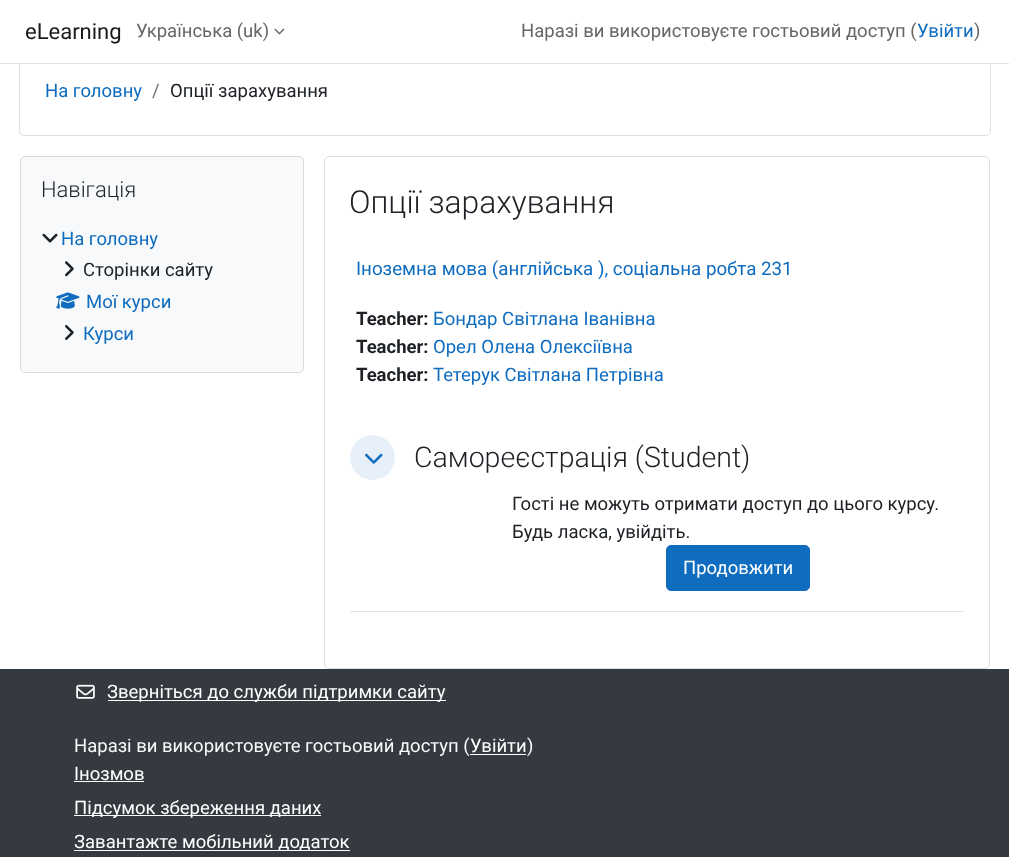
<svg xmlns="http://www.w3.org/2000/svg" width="1009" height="857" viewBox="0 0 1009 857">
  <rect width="100%" height="100%" fill="#ffffff"/>
  <rect x="19.5" y="-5.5" width="971" height="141" rx="4.5" fill="none" stroke="#dfdfdf"/>
  <rect x="19" y="0" width="972" height="63" fill="#ffffff"/>
  <rect x="0" y="63" width="1009" height="1" fill="#dee2e6"/>
  <text x="25" y="39" font-family="Roboto" font-size="22" fill="#1a1a1a">eLearning</text>
  <text x="136" y="37" font-family="Roboto" font-size="18.5" fill="#666666">Українська (uk)</text>
  <image x="274" y="28" width="11" height="7" href="img1.png"/>
  <text x="521" y="37" font-family="Roboto" font-size="18.5" fill="#666666">Наразі ви використовуєте гостьовий доступ (</text>
  <text x="917" y="37" font-family="Roboto" font-size="18.5" fill="#0f6cbf">Увійти</text>
  <text x="974" y="37" font-family="Roboto" font-size="18.5" fill="#666666">)</text>
  <text x="45" y="97" font-family="Roboto" font-size="18.5" fill="#0f6cbf">На головну</text>
  <text x="152" y="97" font-family="Roboto" font-size="18.5" fill="#6a737b">/</text>
  <text x="170" y="97" font-family="Roboto" font-size="18.5" fill="#1d2125">Опції зарахування</text>
  <rect x="20" y="156" width="284" height="217" rx="5" fill="#f8f9fa"/>
  <rect x="20.5" y="156.5" width="283" height="216" rx="4.5" fill="none" stroke="#000000" stroke-opacity="0.12"/>
  <text x="41" y="197" font-family="Roboto" font-size="22" font-weight="300" fill="#1d2125">Навігація</text>
  <image x="42" y="233" width="16" height="10" href="img2.png"/>
  <text x="61" y="245" font-family="Roboto" font-size="18.5" fill="#0f6cbf">На головну</text>
  <image x="65" y="261" width="9" height="16" href="img3.png"/>
  <text x="83" y="276" font-family="Roboto" font-size="18.5" fill="#1d2125">Сторінки сайту</text>
  <image x="56" y="292" width="24" height="17" href="img4.png"/>
  <text x="86" y="308" font-family="Roboto" font-size="18.5" fill="#0f6cbf">Мої курси</text>
  <image x="65" y="325" width="9" height="15" href="img5.png"/>
  <text x="83" y="340" font-family="Roboto" font-size="18.5" fill="#0f6cbf">Курси</text>
  <rect x="324.5" y="156.5" width="665" height="512" rx="4.5" fill="none" stroke="#dfdfdf"/>
  <text x="349" y="213" font-family="Roboto" font-size="31.75" font-weight="300" fill="#1d2125">Опції зарахування</text>
  <text x="356" y="275" font-family="Roboto" font-size="18.75" fill="#0f6cbf">Іноземна мова (англійська ), соціальна робта 231</text>
  <text x="356" y="325" font-family="Roboto" font-size="18.5" font-weight="bold" fill="#1d2125">Teacher:</text>
  <text x="433" y="325" font-family="Roboto" font-size="18.5" fill="#0f6cbf">Бондар Світлана Іванівна</text>
  <text x="356" y="353" font-family="Roboto" font-size="18.5" font-weight="bold" fill="#1d2125">Teacher:</text>
  <text x="433" y="353" font-family="Roboto" font-size="18.5" fill="#0f6cbf">Орел Олена Олексіївна</text>
  <text x="356" y="381" font-family="Roboto" font-size="18.5" font-weight="bold" fill="#1d2125">Teacher:</text>
  <text x="433" y="381" font-family="Roboto" font-size="18.5" fill="#0f6cbf">Тетерук Світлана Петрівна</text>
  <rect x="350" y="611" width="614" height="1" fill="#dee2e6"/>
  <circle cx="372.5" cy="457.5" r="22.5" fill="#e7f0f9"/>
  <image x="365" y="453" width="18" height="11" href="img6.png"/>
  <text x="414" y="467" font-family="Roboto" font-size="28.5" font-weight="300" fill="#1d2125">Самореєстрація (Student)</text>
  <text x="512" y="510" font-family="Roboto" font-size="18.5" fill="#1d2125">Гості не можуть отримати доступ до цього курсу.</text>
  <text x="512" y="538" font-family="Roboto" font-size="18.5" fill="#1d2125">Будь ласка, увійдіть.</text>
  <rect x="666.5" y="545.5" width="143" height="45" rx="4.5" fill="#0f6cbf" stroke="#0f6cbf"/>
  <text x="683" y="574" font-family="Roboto" font-size="18.5" fill="#ffffff">Продовжити</text>
  <rect x="0" y="669" width="1009" height="188" fill="#343a40"/>
  <image x="76" y="684" width="19" height="15" href="img7.png"/>
  <rect x="108" y="700" width="338" height="1" fill="#ffffff"/>
  <text x="107" y="698" font-family="Roboto" font-size="18.5" fill="#ffffff">Зверніться до служби підтримки сайту</text>
  <text x="74" y="752" font-family="Roboto" font-size="18.5" fill="#f8f9fa">Наразі ви використовуєте гостьовий доступ (</text>
  <text x="470" y="752" font-family="Roboto" font-size="18.5" fill="#ffffff">Увійти</text>
  <rect x="470" y="754" width="56" height="1" fill="#ffffff"/>
  <text x="527" y="752" font-family="Roboto" font-size="18.5" fill="#f8f9fa">)</text>
  <text x="74" y="780" font-family="Roboto" font-size="18.5" fill="#ffffff">Інозмов</text>
  <rect x="74" y="781" width="70" height="1" fill="#ffffff"/>
  <rect x="74" y="815" width="247" height="1" fill="#ffffff"/>
  <text x="74" y="814" font-family="Roboto" font-size="18.5" fill="#ffffff">Підсумок збереження даних</text>
  <rect x="74" y="850" width="276" height="1" fill="#ffffff"/>
  <text x="74" y="848" font-family="Roboto" font-size="18.5" fill="#ffffff">Завантажте мобільний додаток</text>
</svg>
